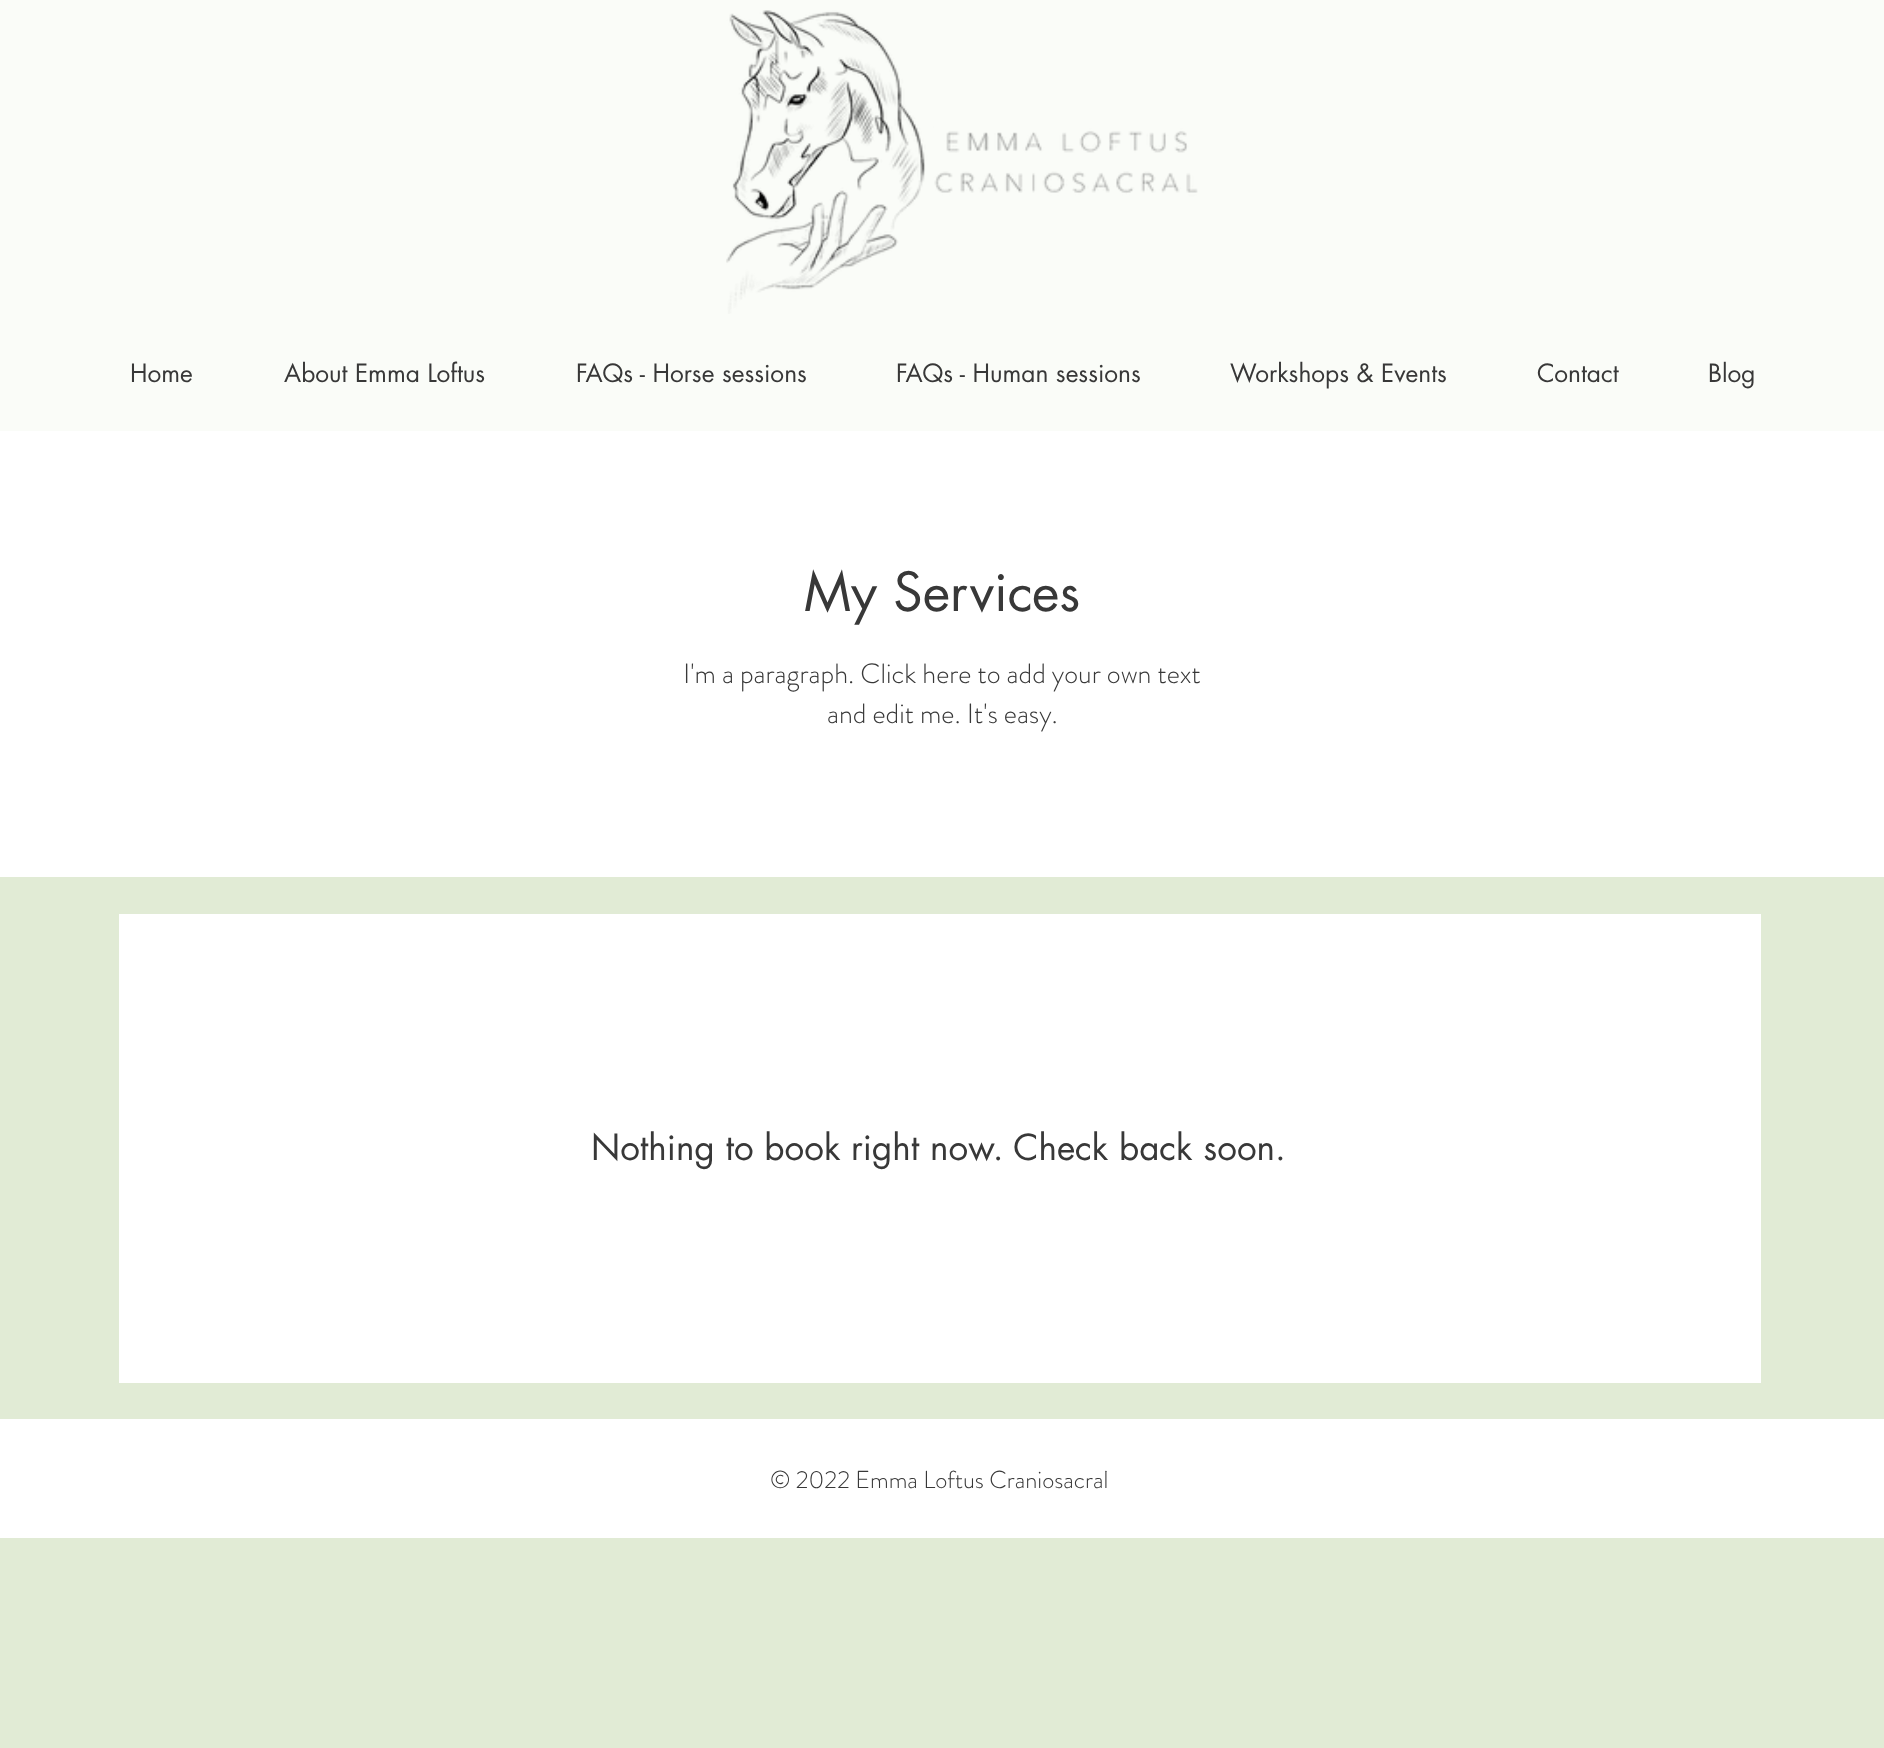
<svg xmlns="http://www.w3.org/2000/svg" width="1884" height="1748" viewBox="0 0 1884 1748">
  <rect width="100%" height="100%" fill="#e1ebd5"/>
  <rect x="0" y="0" width="1884" height="431" fill="#fafcf8"/>
  <image x="726" y="10" width="472" height="304" href="img1.png"/>
  <text x="130" y="382" font-family="futura" font-size="24.5" fill="#383838">Home</text>
  <text x="284" y="382" font-family="futura" font-size="24.5" fill="#383838">About Emma Loftus</text>
  <text x="576" y="382" font-family="futura" font-size="24.5" fill="#383838">FAQs - Horse sessions</text>
  <text x="896" y="382" font-family="futura" font-size="24.5" fill="#383838">FAQs - Human sessions</text>
  <text x="1230" y="382" font-family="futura" font-size="24.5" fill="#383838">Workshops &amp; Events</text>
  <text x="1537" y="382" font-family="futura" font-size="24.5" fill="#383838">Contact</text>
  <text x="1708" y="382" font-family="futura" font-size="24.5" fill="#383838">Blog</text>
  <rect x="0" y="431" width="1884" height="446" fill="#ffffff"/>
  <text x="804" y="611" font-family="futura" font-size="52.5" fill="#383838">My Services</text>
  <text x="683" y="683" font-family="'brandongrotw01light'" font-size="28" font-weight="300" fill="#383838">I'm a paragraph. Click here to add your own text</text>
  <text x="827" y="723" font-family="'brandongrotw01light'" font-size="28" font-weight="300" fill="#383838">and edit me. It's easy.</text>
  <rect x="119" y="914" width="1642" height="469" fill="#ffffff"/>
  <text x="591" y="1160" font-family="futura" font-size="35" fill="#383838">Nothing to book right now. Check back soon.</text>
  <rect x="0" y="1419" width="1884" height="119" fill="#ffffff"/>
  <text x="770" y="1488" font-family="'brandongrotw01light'" font-size="24.5" font-weight="300" fill="#383838">© 2022 Emma Loftus Craniosacral</text>
</svg>
